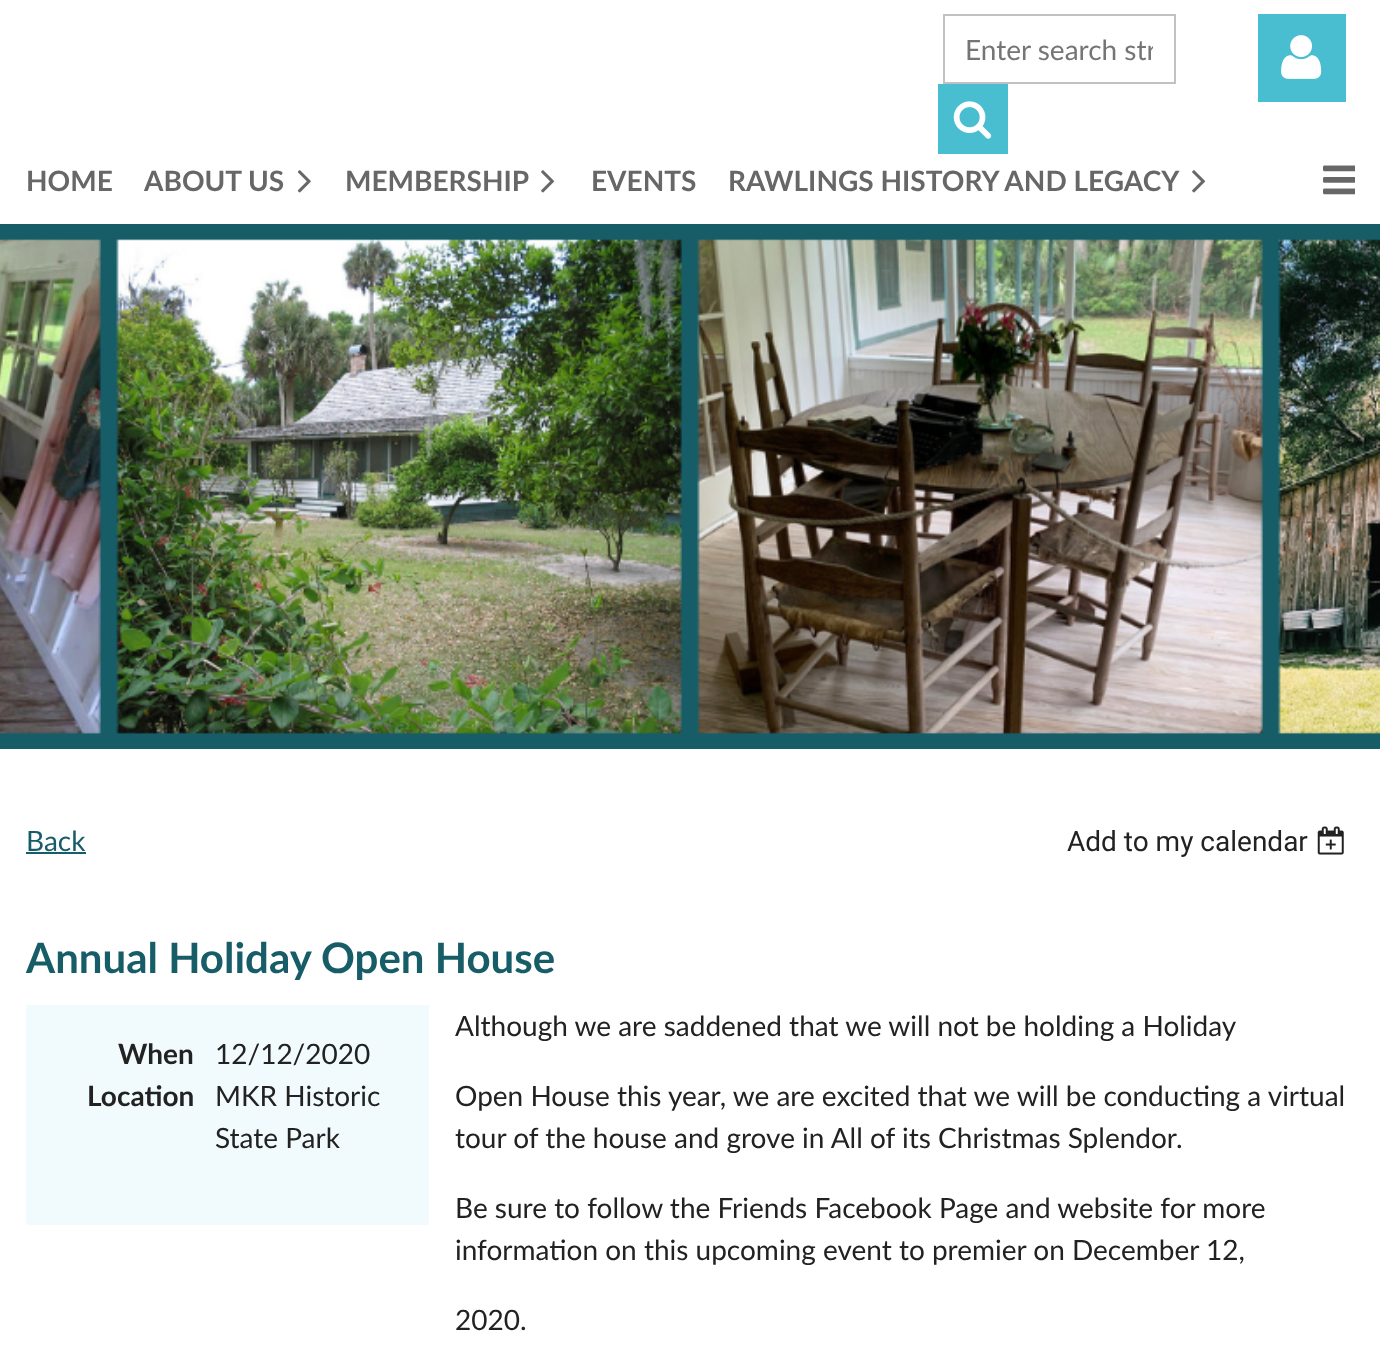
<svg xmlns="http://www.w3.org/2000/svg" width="1380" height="1348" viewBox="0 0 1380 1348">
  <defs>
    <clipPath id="clip1"><rect x="966" y="32" width="187" height="33"/></clipPath>
  </defs>
  <rect width="100%" height="100%" fill="#ffffff"/>
  <rect x="944" y="15" width="231" height="68" fill="none" stroke="#c1c1c1" stroke-width="2"/>
  <g clip-path="url(#clip1)">
    <text x="965" y="60" font-family="Lato" font-size="28" fill="#757575">Enter search str</text>
  </g>
  <rect x="938" y="84" width="70" height="70" fill="#48bed0"/>
  <image x="953" y="101" width="39" height="38" href="img1.png"/>
  <rect x="1258" y="14" width="88" height="88" fill="#48bed0"/>
  <image x="1281" y="35" width="41" height="44" href="img2.png"/>
  <image x="0" y="224" width="1380" height="525" href="img3.png"/>
  <text x="26" y="191" font-family="Lato" font-size="28" font-weight="bold" fill="#676767">HOME</text>
  <text x="144" y="191" font-family="Lato" font-size="28" font-weight="bold" fill="#676767">ABOUT US</text>
  <image x="297" y="170" width="14" height="23" href="img4.png"/>
  <text x="345" y="191" font-family="Lato" font-size="28" font-weight="bold" fill="#676767">MEMBERSHIP</text>
  <image x="541" y="170" width="14" height="23" href="img5.png"/>
  <text x="591" y="191" font-family="Lato" font-size="28" font-weight="bold" fill="#676767">EVENTS</text>
  <text x="728" y="191" font-family="Lato" font-size="28" font-weight="bold" fill="#676767">RAWLINGS HISTORY AND LEGACY</text>
  <image x="1192" y="170" width="14" height="23" href="img5.png"/>
  <image x="1323" y="165" width="32" height="30" href="img6.png"/>
  <text x="26" y="851" font-family="Lato" font-size="28" fill="#175d68">Back</text>
  <rect x="26" y="852" width="60" height="2" fill="#175d68"/>
  <text x="1067" y="851" font-family="Roboto" font-size="28" fill="#222222">Add to my calendar</text>
  <image x="1317" y="826" width="27" height="29" href="img7.png"/>
  <text x="26" y="973" font-family="Lato" font-size="42" font-weight="bold" fill="#175d68">Annual Holiday Open House</text>
  <rect x="26" y="1005" width="403" height="220" fill="#f1fbfd"/>
  <text x="118" y="1064" font-family="Lato" font-size="28" font-weight="bold" fill="#222222">When</text>
  <text x="215" y="1064" font-family="Lato" font-size="28" fill="#222222">12/12/2020</text>
  <text x="87" y="1106" font-family="Lato" font-size="28" font-weight="bold" fill="#222222">Location</text>
  <text x="215" y="1106" font-family="Lato" font-size="28" fill="#222222">MKR Historic</text>
  <text x="215" y="1148" font-family="Lato" font-size="28" fill="#222222">State Park</text>
  <text x="455" y="1036" font-family="Lato" font-size="28" fill="#222222">Although we are saddened that we will not be holding a Holiday</text>
  <text x="455" y="1106" font-family="Lato" font-size="28" fill="#222222">Open House this year, we are excited that we will be conducting a virtual</text>
  <text x="455" y="1148" font-family="Lato" font-size="28" fill="#222222">tour of the house and grove in All of its Christmas Splendor.</text>
  <text x="455" y="1218" font-family="Lato" font-size="28" fill="#222222">Be sure to follow the Friends Facebook Page and website for more</text>
  <text x="455" y="1260" font-family="Lato" font-size="28" fill="#222222">information on this upcoming event to premier on December 12,</text>
  <text x="455" y="1330" font-family="Lato" font-size="28" fill="#222222">2020.</text>
</svg>
